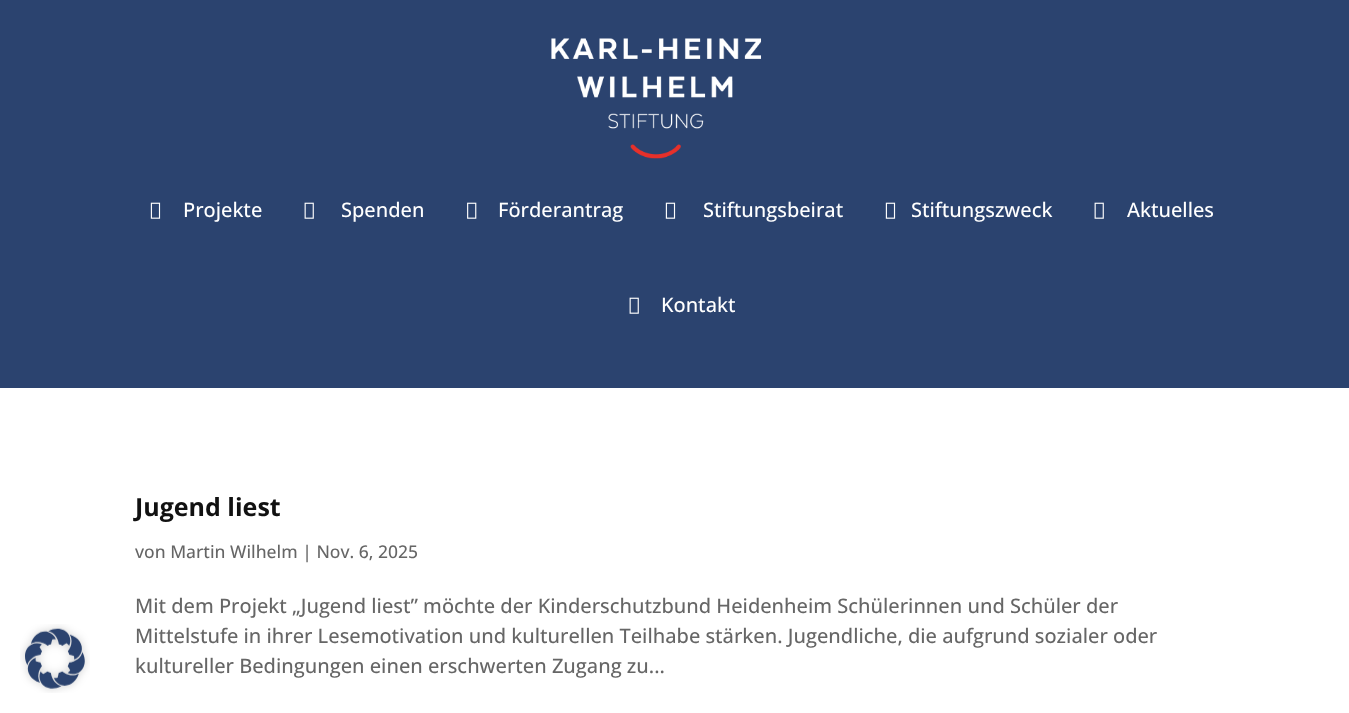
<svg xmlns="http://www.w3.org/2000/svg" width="1349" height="713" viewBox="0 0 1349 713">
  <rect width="100%" height="100%" fill="#ffffff"/>
  <image x="20" y="624" width="70" height="69" href="img1.png"/>
  <rect x="0" y="0" width="1349" height="388" fill="#2b436f"/>
  <image x="551" y="38" width="211" height="121" href="img2.png"/>
  <image x="150" y="202" width="11" height="17" href="img3.png"/>
  <text x="183" y="217" font-family="Open Sans" font-size="20" font-weight="500" fill="#ffffff">Projekte</text>
  <image x="304" y="202" width="10" height="17" href="img4.png"/>
  <text x="341" y="217" font-family="Open Sans" font-size="20" font-weight="500" fill="#ffffff">Spenden</text>
  <image x="467" y="202" width="10" height="17" href="img5.png"/>
  <text x="498" y="217" font-family="Open Sans" font-size="20" font-weight="500" fill="#ffffff">Förderantrag</text>
  <image x="665" y="202" width="11" height="17" href="img3.png"/>
  <text x="703" y="217" font-family="Open Sans" font-size="20" font-weight="500" fill="#ffffff">Stiftungsbeirat</text>
  <image x="885" y="202" width="11" height="17" href="img3.png"/>
  <text x="911" y="217" font-family="Open Sans" font-size="20" font-weight="500" fill="#ffffff">Stiftungszweck</text>
  <image x="1094" y="202" width="10" height="17" href="img4.png"/>
  <text x="1127" y="217" font-family="Open Sans" font-size="20" font-weight="500" fill="#ffffff">Aktuelles</text>
  <image x="629" y="297" width="10" height="17" href="img4.png"/>
  <text x="661" y="312" font-family="Open Sans" font-size="20" font-weight="500" fill="#ffffff">Kontakt</text>
  <text x="135" y="516" font-family="Open Sans" font-size="25" font-weight="bold" fill="#111111">Jugend liest</text>
  <text x="135" y="558" font-family="Open Sans" font-size="17.5" font-weight="500" fill="#666666">von Martin Wilhelm | Nov. 6, 2025</text>
  <text x="135" y="613" font-family="Open Sans" font-size="20" font-weight="500" fill="#666666">Mit dem Projekt „Jugend liest” möchte der Kinderschutzbund Heidenheim Schülerinnen und Schüler der</text>
  <text x="135" y="643" font-family="Open Sans" font-size="20" font-weight="500" fill="#666666">Mittelstufe in ihrer Lesemotivation und kulturellen Teilhabe stärken. Jugendliche, die aufgrund sozialer oder</text>
  <text x="135" y="673" font-family="Open Sans" font-size="20" font-weight="500" fill="#666666">kultureller Bedingungen einen erschwerten Zugang zu...</text>
</svg>
